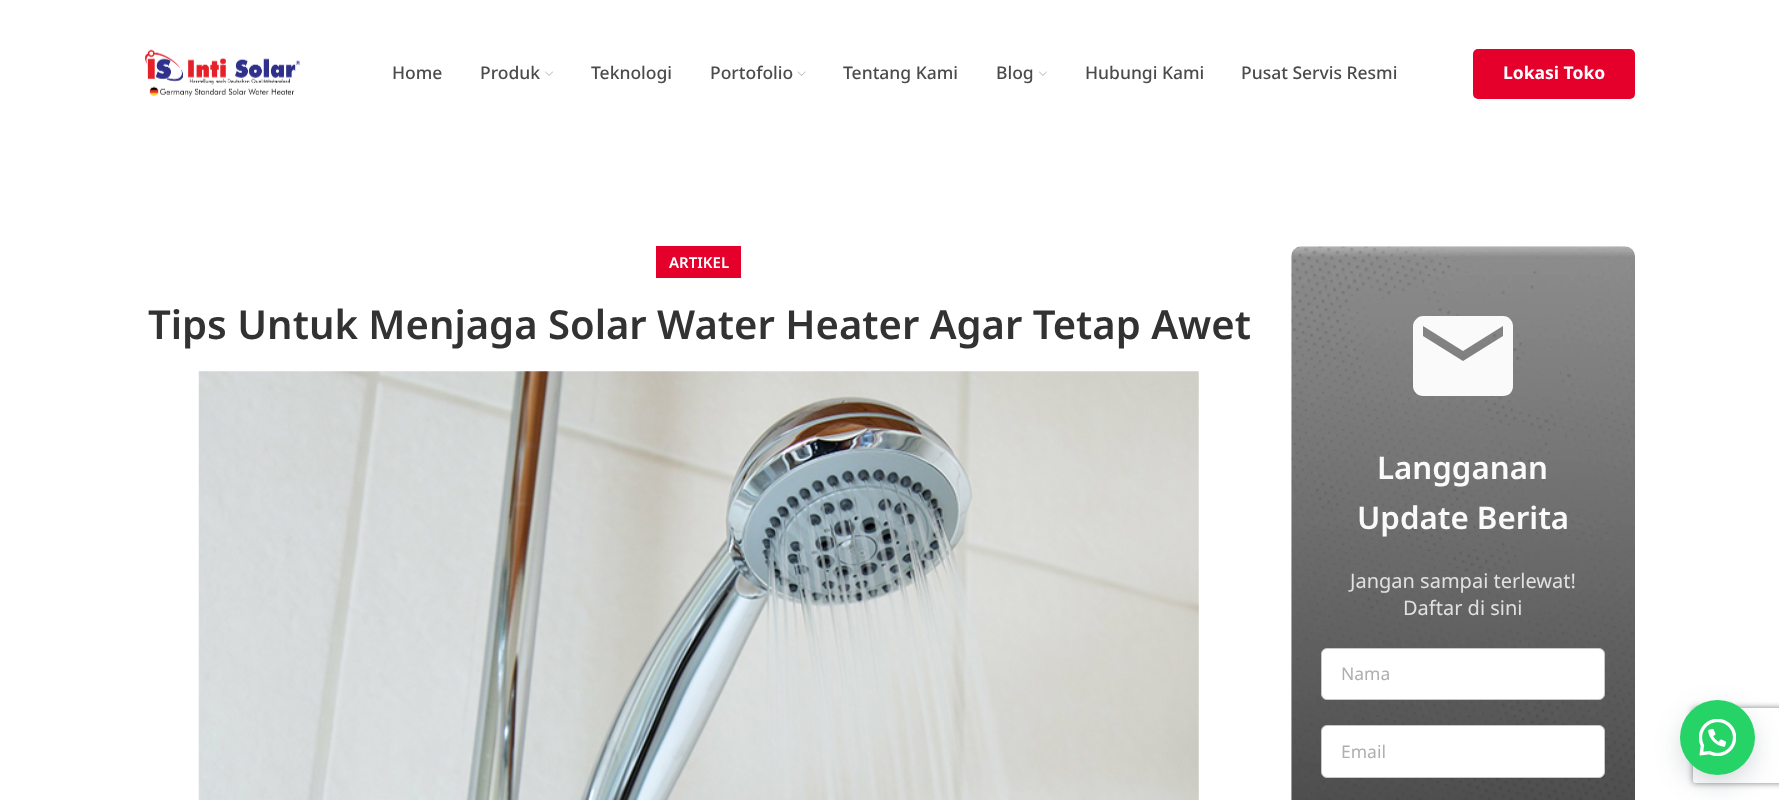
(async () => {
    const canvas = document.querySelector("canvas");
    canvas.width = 1779;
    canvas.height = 800;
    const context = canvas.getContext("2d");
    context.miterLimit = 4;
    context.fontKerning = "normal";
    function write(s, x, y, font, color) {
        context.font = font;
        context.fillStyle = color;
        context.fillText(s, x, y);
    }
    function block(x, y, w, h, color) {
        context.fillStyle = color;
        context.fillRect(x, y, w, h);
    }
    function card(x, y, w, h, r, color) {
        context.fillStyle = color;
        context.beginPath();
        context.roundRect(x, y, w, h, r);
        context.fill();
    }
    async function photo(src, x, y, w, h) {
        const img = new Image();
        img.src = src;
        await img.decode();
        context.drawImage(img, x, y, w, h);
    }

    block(0, 0, 1779, 800, "rgb(255, 255, 255)");
    await photo("media/1.png", 145, 49, 155, 48);
    write("Home", 392, 79, "500 17.5px Noto Sans", "rgb(75, 75, 75)");
    write("Produk", 480, 79, "500 17.5px Noto Sans", "rgb(75, 75, 75)");
    await photo("media/2.png", 545, 71, 8, 5);
    write("Teknologi", 591, 79, "500 17.5px Noto Sans", "rgb(75, 75, 75)");
    write("Portofolio", 710, 79, "500 17.5px Noto Sans", "rgb(75, 75, 75)");
    await photo("media/3.png", 797, 71, 9, 5);
    write("Tentang Kami", 843, 79, "500 17.5px Noto Sans", "rgb(75, 75, 75)");
    write("Blog", 996, 79, "500 17.5px Noto Sans", "rgb(75, 75, 75)");
    await photo("media/4.png", 1039, 71, 8, 5);
    write("Hubungi Kami", 1085, 79, "500 17.5px Noto Sans", "rgb(75, 75, 75)");
    write("Pusat Servis Resmi", 1241, 79, "500 17.5px Noto Sans", "rgb(75, 75, 75)");
    card(1473, 49, 162, 50, 5, "rgb(228, 0, 43)");
    write("Lokasi Toko", 1503, 79, "bold 17.5px Noto Sans", "rgb(255, 255, 255)");
    block(656, 246, 85, 32, "rgb(228, 0, 43)");
    write("ARTIKEL", 669, 268, "600 15px Noto Sans", "rgb(255, 255, 255)");
    write("Tips Untuk Menjaga Solar Water Heater Agar Tetap Awet", 148, 339, "600 40px Noto Sans", "rgb(50, 50, 50)");
    await photo("media/5.png", 198, 371, 1001, 429);
    await photo("media/6.png", 1291, 246, 344, 554);
    context.fillStyle = "rgb(249, 250, 249)";
    context.beginPath();
    context.moveTo(1503, 316);
    context.lineTo(1423, 316);
    context.bezierCurveTo(1418, 316, 1413, 321, 1413, 326);
    context.lineTo(1413, 386);
    context.bezierCurveTo(1413, 392, 1418, 396, 1423, 396);
    context.lineTo(1503, 396);
    context.bezierCurveTo(1509, 396, 1513, 392, 1513, 386);
    context.lineTo(1513, 326);
    context.bezierCurveTo(1513, 321, 1509, 316, 1503, 316);
    context.closePath();
    context.moveTo(1503, 336);
    context.lineTo(1463, 361);
    context.lineTo(1423, 336);
    context.lineTo(1423, 326);
    context.lineTo(1463, 351);
    context.lineTo(1503, 326);
    context.closePath();
    context.fill();
    write("Langganan", 1377, 479, "600 31.25px Noto Sans", "rgb(249, 250, 249)");
    write("Update Berita", 1357, 529, "600 31.25px Noto Sans", "rgb(249, 250, 249)");
    write("Jangan sampai terlewat!", 1350, 588, "20px Noto Sans", "rgb(224, 225, 224)");
    write("Daftar di sini", 1403, 615, "20px Noto Sans", "rgb(224, 225, 224)");
    context.fillStyle = "rgb(255, 255, 255)";
    context.beginPath();
    context.roundRect(1321.5, 648.5, 283, 51, 5.5);
    context.fill();
    context.strokeStyle = "rgb(199, 200, 199)";
    context.stroke();
    write("Nama", 1341, 680, "17.5px Noto Sans", "rgb(174, 175, 174)");
    context.fillStyle = "rgb(255, 255, 255)";
    context.beginPath();
    context.roundRect(1321.5, 725.5, 283, 52, 5.5);
    context.fill();
    context.stroke();
    write("Email", 1341, 758, "17.5px Noto Sans", "rgb(174, 175, 174)");
    context.fillStyle = "rgba(45, 62, 79, 0.3)";
    context.filter = "blur(15.5px)";
    context.beginPath();
    context.roundRect(1686, 716, 63, 63, 31.5);
    context.fill();
    context.filter = "none";
    context.save();
    context.beginPath();
    context.moveTo(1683, 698);
    context.lineTo(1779, 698);
    context.lineTo(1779, 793);
    context.lineTo(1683, 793);
    context.closePath();
    context.moveTo(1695.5, 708);
    context.lineTo(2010.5, 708);
    context.bezierCurveTo(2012, 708, 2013, 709, 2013, 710.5);
    context.lineTo(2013, 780.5);
    context.bezierCurveTo(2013, 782, 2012, 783, 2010.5, 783);
    context.lineTo(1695.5, 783);
    context.bezierCurveTo(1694, 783, 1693, 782, 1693, 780.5);
    context.lineTo(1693, 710.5);
    context.bezierCurveTo(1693, 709, 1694, 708, 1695.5, 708);
    context.closePath();
    context.clip("evenodd");
    context.fillStyle = "rgb(128, 128, 128)";
    context.filter = "blur(3px)";
    context.beginPath();
    context.roundRect(1693, 708, 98, 75, 2.5);
    context.fill();
    context.filter = "none";
    context.restore();
    context.fillStyle = "rgb(37, 211, 102)";
    context.beginPath();
    context.arc(1717.5, 737.5, 37.5, 0, Math.PI * 2);
    context.fill();
    await photo("media/7.png", 1699, 719, 37, 37);
})();
